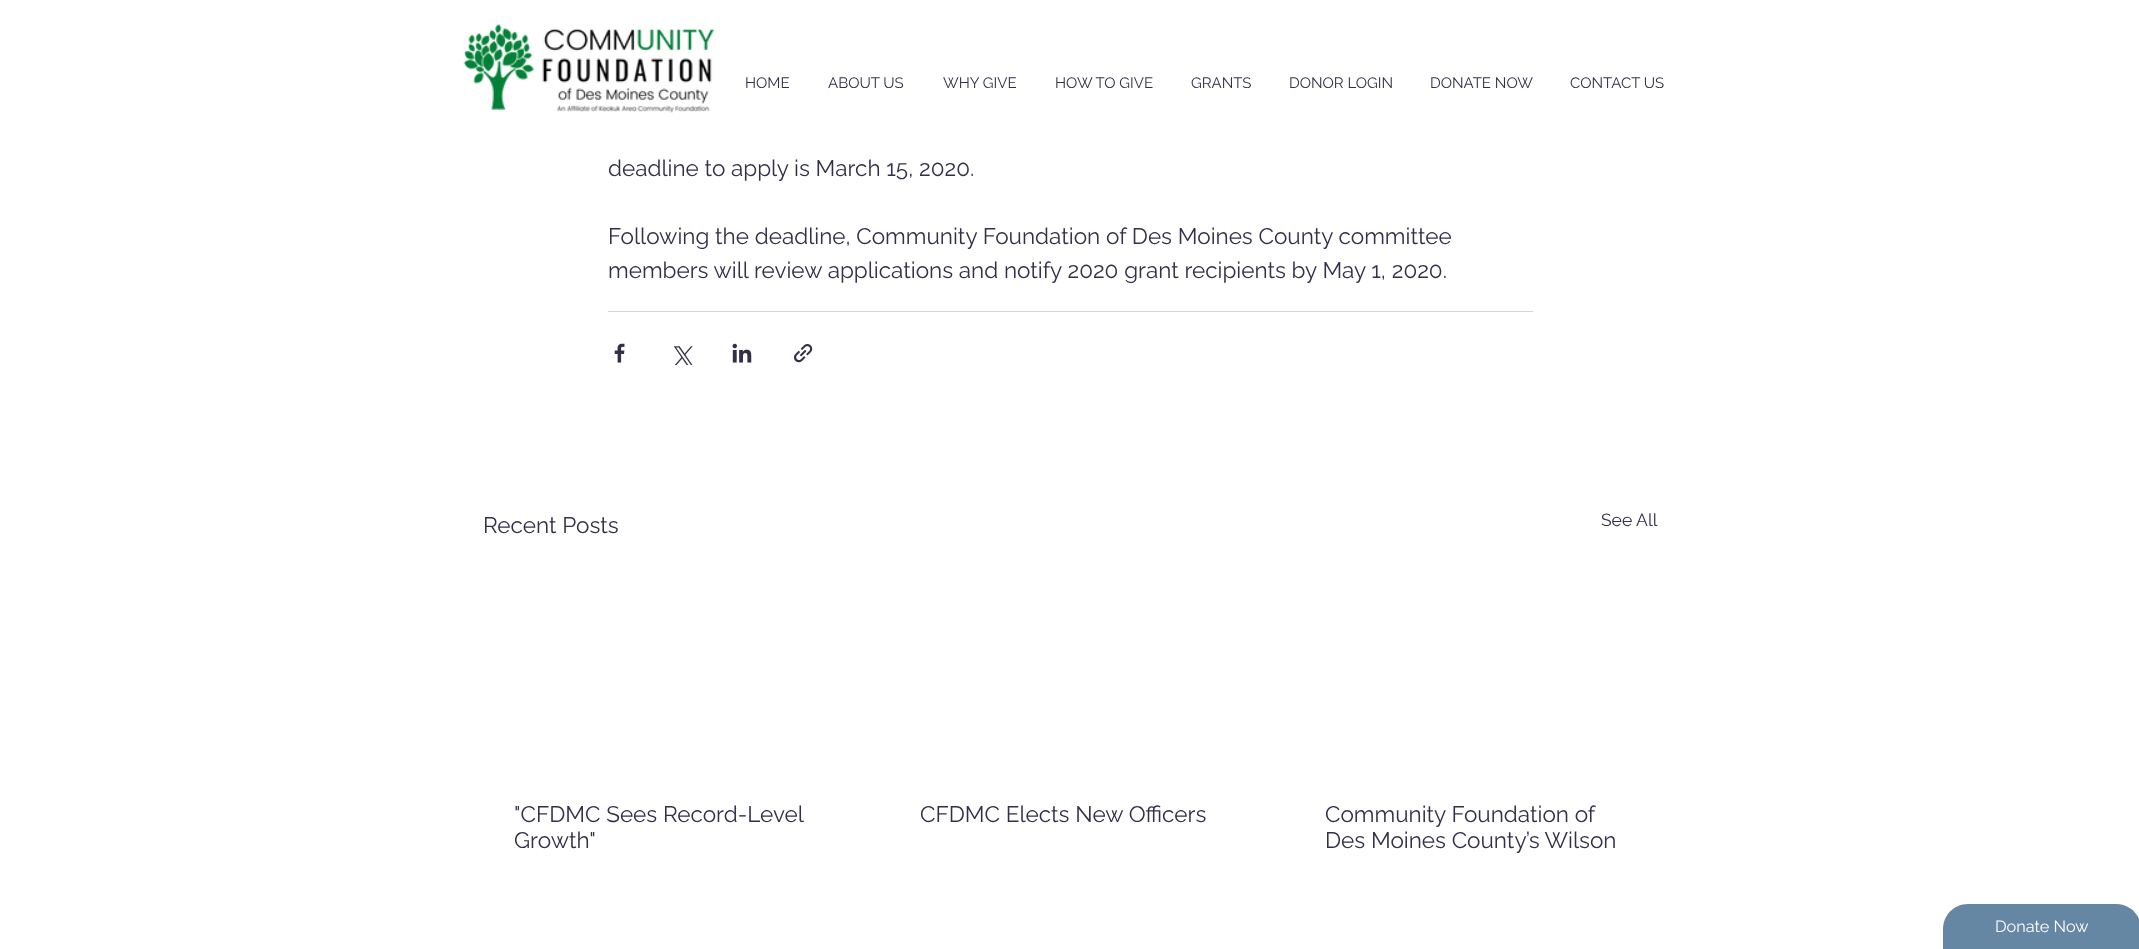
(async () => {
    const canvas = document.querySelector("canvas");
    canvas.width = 2139;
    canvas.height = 949;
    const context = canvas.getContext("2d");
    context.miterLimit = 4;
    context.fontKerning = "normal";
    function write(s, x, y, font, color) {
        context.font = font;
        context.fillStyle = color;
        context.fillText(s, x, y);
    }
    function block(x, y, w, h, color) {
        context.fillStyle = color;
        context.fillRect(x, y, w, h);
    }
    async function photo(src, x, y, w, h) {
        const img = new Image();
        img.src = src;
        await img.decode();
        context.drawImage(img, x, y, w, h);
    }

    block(0, 0, 2139, 949, "rgb(255, 255, 255)");
    await photo("media/1.png", 463, 24, 251, 89);
    write("HOME", 745, 88, "15px Raleway", "rgb(51, 46, 73)");
    write("ABOUT US", 828, 88, "15px Raleway", "rgb(51, 46, 73)");
    write("WHY GIVE", 943, 88, "15px Raleway", "rgb(51, 46, 73)");
    write("HOW TO GIVE", 1055, 88, "15px Raleway", "rgb(51, 46, 73)");
    write("GRANTS", 1191, 88, "15px Raleway", "rgb(51, 46, 73)");
    write("DONOR LOGIN", 1289, 88, "15px Raleway", "rgb(51, 46, 73)");
    write("DONATE NOW", 1430, 88, "15px Raleway", "rgb(51, 46, 73)");
    write("CONTACT US", 1570, 88, "15px Raleway", "rgb(51, 46, 73)");
    write("deadline to apply is March 15, 2020.", 608, 176, "22.5px Raleway", "rgb(51, 46, 73)");
    write("Following the deadline, Community Foundation of Des Moines County committee", 608, 244, "22.5px Raleway", "rgb(51, 46, 73)");
    write("members will review applications and notify 2020 grant recipients by May 1, 2020.", 608, 278, "22.5px Raleway", "rgb(51, 46, 73)");
    block(608, 311, 925, 1, "rgb(214, 213, 219)");
    await photo("media/2.png", 614, 343, 11, 20);
    await photo("media/3.png", 673, 346, 20, 19);
    await photo("media/4.png", 732, 343, 20, 20);
    await photo("media/5.png", 794, 344, 19, 19);
    write("Recent Posts", 483, 533, "22.5px Raleway", "rgb(51, 46, 73)");
    write("See All", 1601, 526, "17.5px Raleway", "rgb(51, 46, 73)");
    write("\"CFDMC Sees Record-Level", 514, 822, "22.5px Raleway", "rgb(51, 46, 73)");
    write("Growth\"", 514, 848, "22.5px Raleway", "rgb(51, 46, 73)");
    write("CFDMC Elects New Officers", 920, 822, "22.5px Raleway", "rgb(51, 46, 73)");
    write("Community Foundation of", 1325, 822, "22.5px Raleway", "rgb(51, 46, 73)");
    write("Des Moines County’s Wilson", 1325, 848, "22.5px Raleway", "rgb(51, 46, 73)");
    context.fillStyle = "rgb(101, 135, 164)";
    context.beginPath();
    context.moveTo(1968, 904);
    context.lineTo(2116, 904);
    context.bezierCurveTo(2130, 904, 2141, 915, 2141, 929);
    context.lineTo(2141, 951);
    context.lineTo(1943, 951);
    context.lineTo(1943, 929);
    context.bezierCurveTo(1943, 915, 1954, 904, 1968, 904);
    context.closePath();
    context.fill();
    write("Donate Now", 1995, 932, "16.25px Raleway", "rgb(255, 255, 255)");
})();
